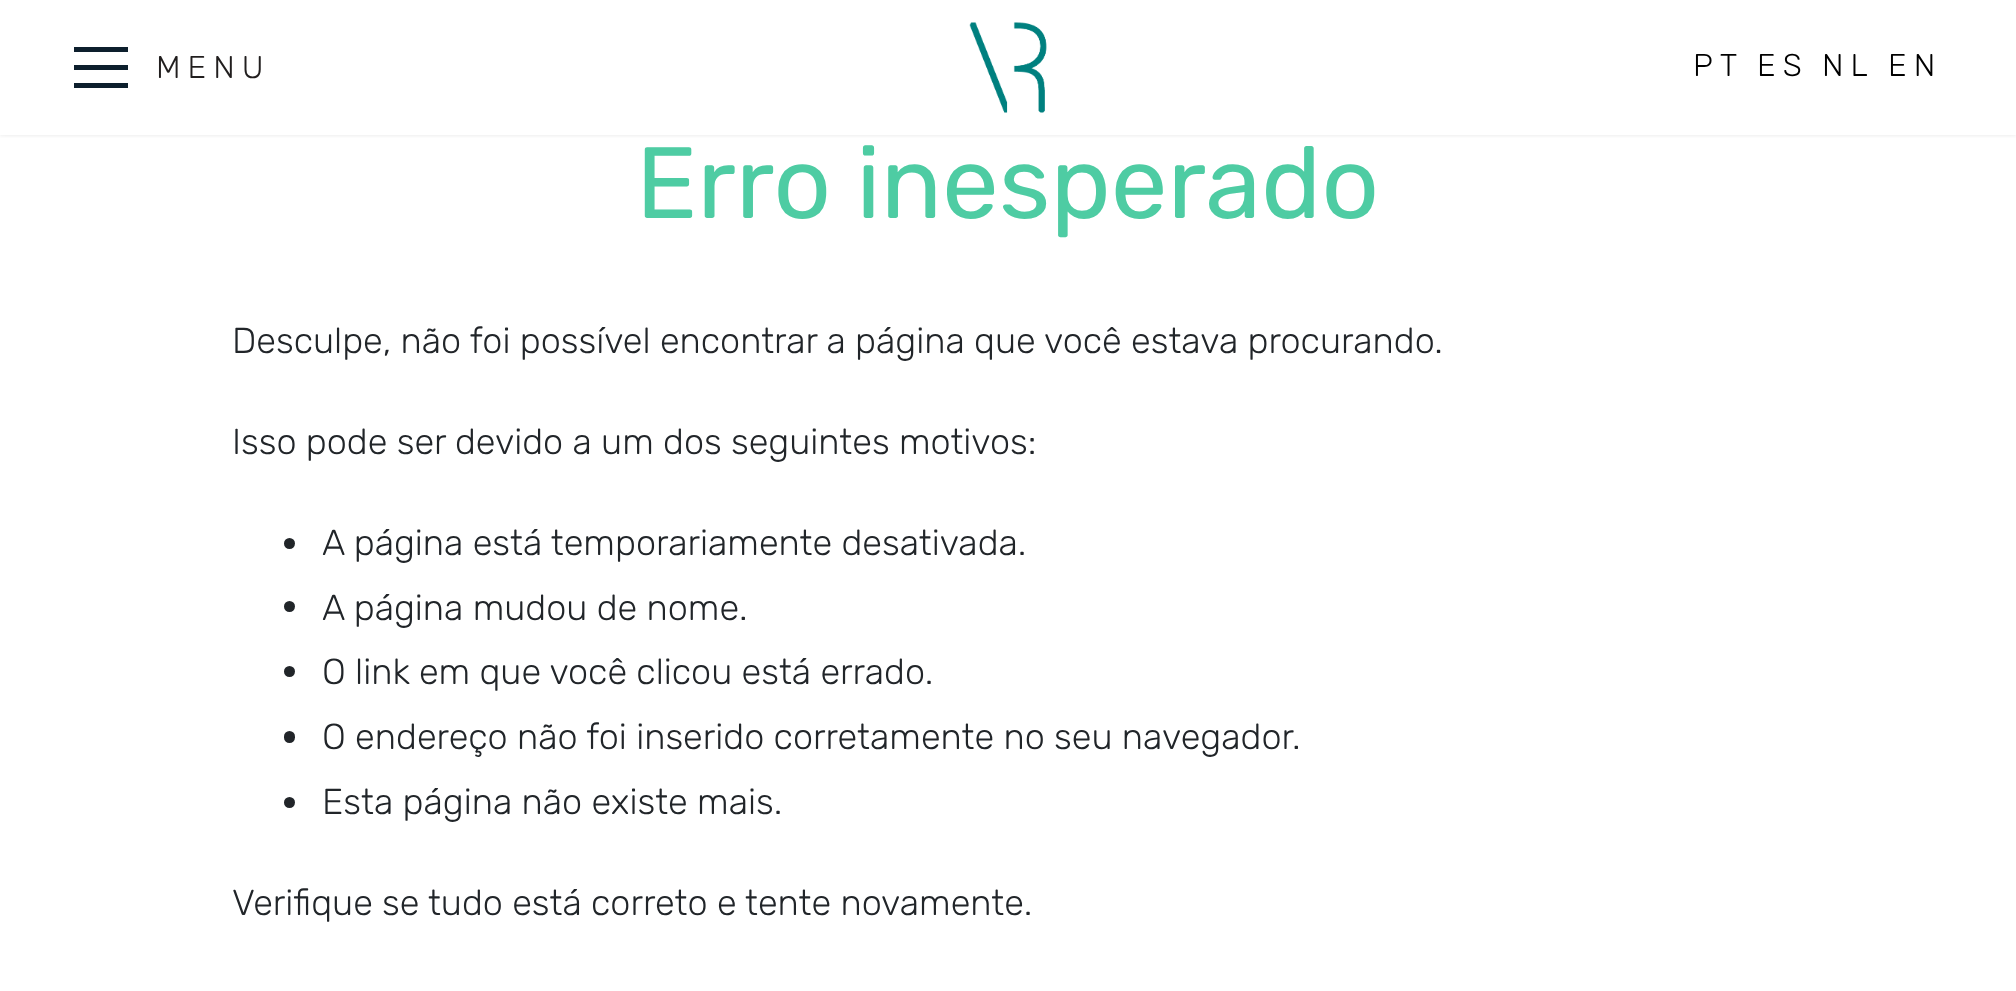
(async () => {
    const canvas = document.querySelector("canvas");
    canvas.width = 2016;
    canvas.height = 991;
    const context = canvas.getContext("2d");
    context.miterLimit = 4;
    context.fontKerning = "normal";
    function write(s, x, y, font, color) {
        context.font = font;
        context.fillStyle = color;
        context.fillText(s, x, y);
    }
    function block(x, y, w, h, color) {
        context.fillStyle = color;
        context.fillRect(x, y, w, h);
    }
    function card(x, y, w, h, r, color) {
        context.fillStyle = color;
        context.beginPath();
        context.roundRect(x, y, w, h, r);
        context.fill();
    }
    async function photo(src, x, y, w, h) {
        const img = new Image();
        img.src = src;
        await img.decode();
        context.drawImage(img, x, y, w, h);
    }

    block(0, 0, 2016, 991, "rgb(255, 255, 255)");
    context.save();
    context.beginPath();
    context.rect(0, 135, 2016, 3);
    context.clip();
    context.fillStyle = "rgba(204, 204, 204, 0.5)";
    context.filter = "blur(2px)";
    context.beginPath();
    context.rect(0, 0, 2016, 135);
    context.fill();
    context.filter = "none";
    context.restore();
    block(74, 65, 54, 5, "rgb(13, 31, 45)");
    block(74, 47, 54, 5, "rgb(13, 31, 45)");
    block(74, 83, 54, 5, "rgb(13, 31, 45)");
    context.letterSpacing = "7px";
    write("MENU", 156, 78, "300 31.5px Rubik", "rgb(33, 30, 30)");
    await photo("media/1.png", 969, 22, 78, 91);
    write("PT", 1693, 76, "300 31.5px Rubik", "rgb(0, 0, 0)");
    write("ES", 1757, 76, "300 31.5px Rubik", "rgb(0, 0, 0)");
    write("NL", 1822, 76, "300 31.5px Rubik", "rgb(0, 0, 0)");
    write("EN", 1888, 76, "300 31.5px Rubik", "rgb(0, 0, 0)");
    context.letterSpacing = "0px";
    write("Erro inesperado", 636, 218, "101.25px Rubik", "rgb(78, 204, 163)");
    write("Desculpe, não foi possível encontrar a página que você estava procurando.", 232, 353, "300 36px Rubik", "rgb(33, 37, 41)");
    write("Isso pode ser devido a um dos seguintes motivos:", 232, 454, "300 36px Rubik", "rgb(33, 37, 41)");
    context.beginPath();
    context.arc(289.5, 543.5, 5.5, 0, Math.PI * 2);
    context.fill();
    write("A página está temporariamente desativada.", 322, 555, "300 36px Rubik", "rgb(33, 37, 41)");
    context.beginPath();
    context.arc(289.5, 606.5, 5.5, 0, Math.PI * 2);
    context.fill();
    write("A página mudou de nome.", 322, 620, "300 36px Rubik", "rgb(33, 37, 41)");
    context.beginPath();
    context.arc(289.5, 671.5, 5.5, 0, Math.PI * 2);
    context.fill();
    write("O link em que você clicou está errado.", 322, 684, "300 36px Rubik", "rgb(33, 37, 41)");
    card(284, 731, 11, 12, 5.5, "rgb(33, 37, 41)");
    write("O endereço não foi inserido corretamente no seu navegador.", 322, 749, "300 36px Rubik", "rgb(33, 37, 41)");
    context.beginPath();
    context.arc(289.5, 802.5, 5.5, 0, Math.PI * 2);
    context.fill();
    write("Esta página não existe mais.", 322, 814, "300 36px Rubik", "rgb(33, 37, 41)");
    write("Verifique se tudo está correto e tente novamente.", 232, 915, "300 36px Rubik", "rgb(33, 37, 41)");
})();
